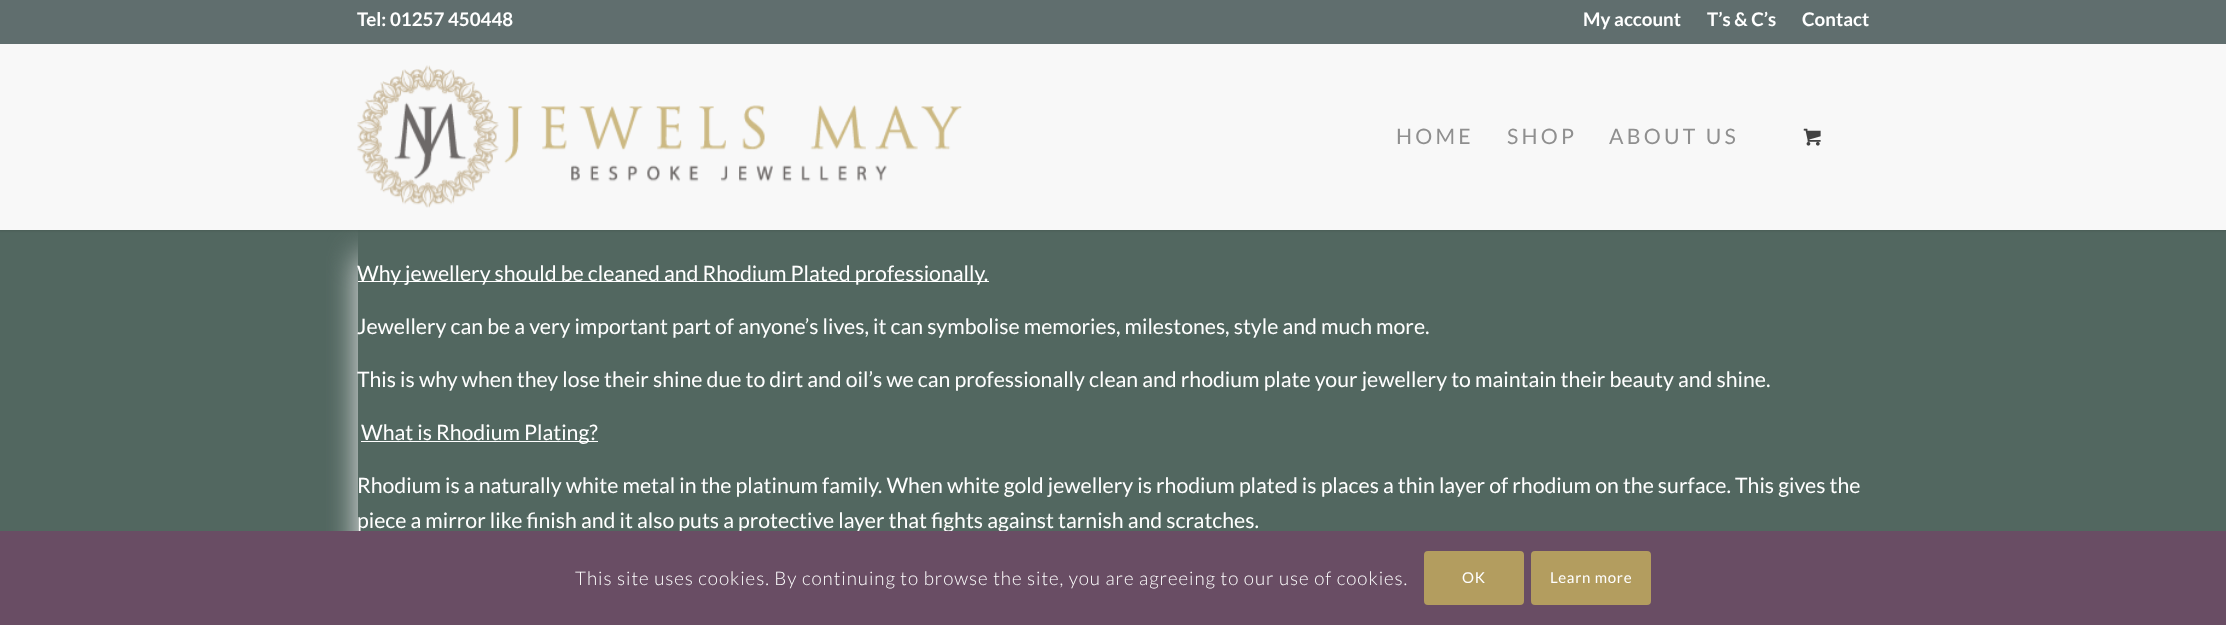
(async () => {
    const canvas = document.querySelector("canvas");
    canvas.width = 2226;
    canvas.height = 625;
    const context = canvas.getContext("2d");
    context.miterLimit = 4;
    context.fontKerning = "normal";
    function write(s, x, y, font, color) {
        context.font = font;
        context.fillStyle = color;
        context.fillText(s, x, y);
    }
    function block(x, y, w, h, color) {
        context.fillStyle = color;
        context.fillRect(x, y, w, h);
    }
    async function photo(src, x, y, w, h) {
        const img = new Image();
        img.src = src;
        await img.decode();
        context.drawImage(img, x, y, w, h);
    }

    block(0, 0, 2226, 625, "rgb(82, 103, 96)");
    context.fillStyle = "rgba(0, 0, 0, 0.1)";
    context.filter = "blur(1px)";
    context.beginPath();
    context.rect(-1, -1, 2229, 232);
    context.fill();
    context.filter = "none";
    block(0, 0, 2226, 44, "rgb(96, 110, 110)");
    write("Tel: 01257 450448", 357, 26, "bold 18.75px Lato", "rgb(255, 255, 255)");
    write("My account", 1583, 26, "bold 18.75px Lato", "rgb(255, 255, 255)");
    write("T’s & C’s", 1707, 26, "bold 18.75px Lato", "rgb(255, 255, 255)");
    write("Contact", 1802, 26, "bold 18.75px Lato", "rgb(255, 255, 255)");
    context.save();
    context.beginPath();
    context.rect(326, 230, 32, 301);
    context.clip();
    context.fillStyle = "rgb(233, 233, 235)";
    context.filter = "blur(15.5px)";
    context.beginPath();
    context.rect(358, 256, 1450, 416);
    context.fill();
    context.filter = "none";
    context.restore();
    block(0, 44, 2226, 186, "rgb(248, 248, 248)");
    await photo("media/1.png", 357, 65, 605, 143);
    context.letterSpacing = "3.25px";
    write("HOME", 1396, 144, "21.25px Lato", "rgb(143, 143, 143)");
    write("SHOP", 1507, 144, "21.25px Lato", "rgb(143, 143, 143)");
    write("ABOUT US", 1609, 144, "21.25px Lato", "rgb(143, 143, 143)");
    await photo("media/2.png", 1803, 128, 18, 18);
    block(358, 281, 631, 1, "rgb(255, 255, 255)");
    context.letterSpacing = "0px";
    write("Why jewellery should be cleaned and Rhodium Plated professionally.", 357, 281, "21.25px Lato", "rgb(255, 255, 255)");
    write("Jewellery can be a very important part of anyone’s lives, it can symbolise memories, milestones, style and much more.", 357, 334, "21.25px Lato", "rgb(255, 255, 255)");
    write("This is why when they lose their shine due to dirt and oil’s we can professionally clean and rhodium plate your jewellery to maintain their beauty and shine.", 357, 387, "21.25px Lato", "rgb(255, 255, 255)");
    block(361, 441, 237, 1, "rgb(255, 255, 255)");
    write("What is Rhodium Plating?", 361, 440, "21.25px Lato", "rgb(255, 255, 255)");
    write("Rhodium is a naturally white metal in the platinum family. When white gold jewellery is rhodium plated is places a thin layer of rhodium on the surface. This gives the", 357, 493, "21.25px Lato", "rgb(255, 255, 255)");
    write("piece a mirror like finish and it also puts a protective layer that fights against tarnish and scratches.", 357, 528, "21.25px Lato", "rgb(255, 255, 255)");
    block(0, 531, 2226, 94, "rgb(105, 77, 100)");
    context.letterSpacing = "0.95px";
    write("This site uses cookies. By continuing to browse the site, you are agreeing to our use of cookies.", 575, 585, "300 18.75px Lato", "rgb(255, 255, 255)");
    context.fillStyle = "rgb(179, 157, 95)";
    context.beginPath();
    context.roundRect(1425.5, 552.5, 97, 51, 2.5);
    context.fill();
    context.strokeStyle = "rgb(179, 157, 95)";
    context.lineWidth = 3;
    context.stroke();
    context.letterSpacing = "0.75px";
    write("OK", 1462, 583, "15px Lato", "rgb(255, 255, 255)");
    context.fillStyle = "rgb(179, 157, 95)";
    context.beginPath();
    context.roundRect(1532.5, 552.5, 117, 51, 2.5);
    context.fill();
    context.stroke();
    write("Learn more", 1550, 583, "15px Lato", "rgb(255, 255, 255)");
})();
